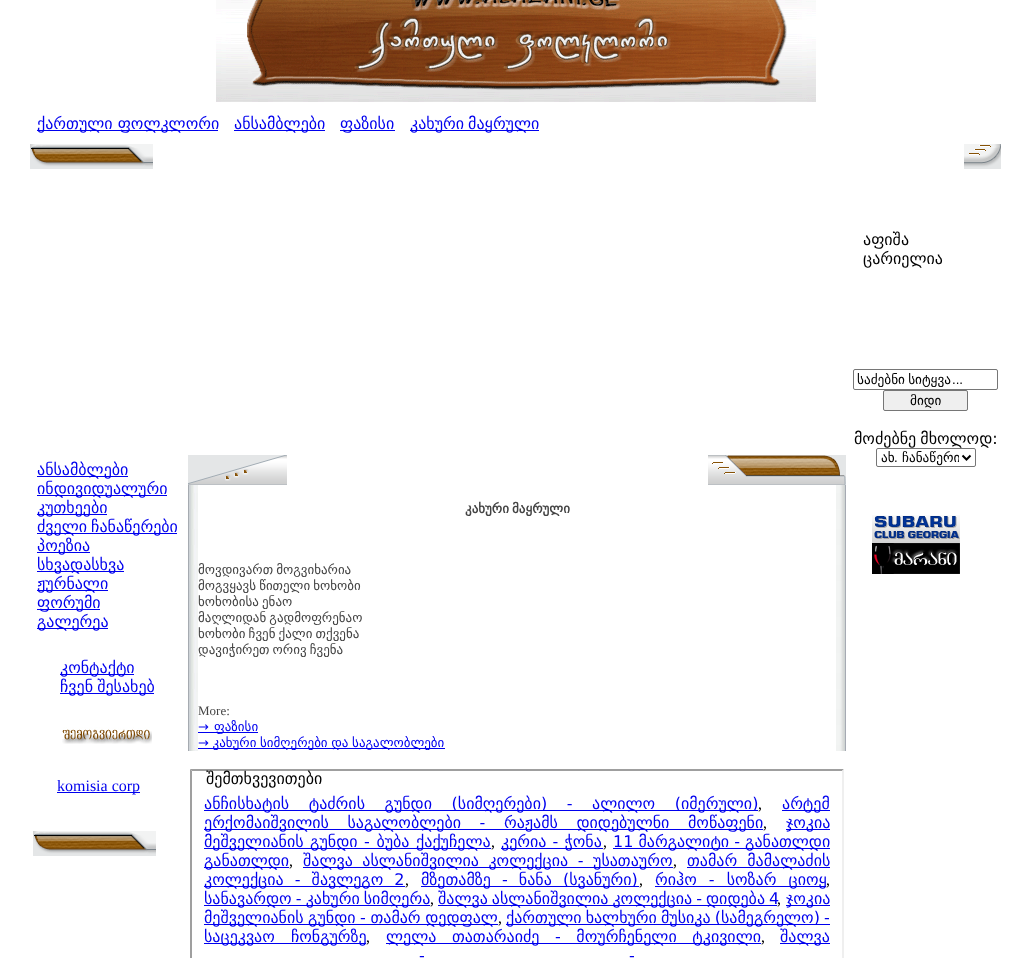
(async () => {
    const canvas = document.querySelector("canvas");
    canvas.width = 1031;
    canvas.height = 958;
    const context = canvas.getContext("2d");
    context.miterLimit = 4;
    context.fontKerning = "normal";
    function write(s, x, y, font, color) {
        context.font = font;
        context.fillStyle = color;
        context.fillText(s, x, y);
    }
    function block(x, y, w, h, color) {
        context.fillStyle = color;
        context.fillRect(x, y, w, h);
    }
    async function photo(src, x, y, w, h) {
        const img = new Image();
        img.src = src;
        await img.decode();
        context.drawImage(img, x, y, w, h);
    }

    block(0, 0, 1031, 958, "rgb(255, 255, 255)");
    await photo("media/1.png", 216, 0, 600, 102);
    block(37, 130, 181, 1, "rgb(0, 0, 238)");
    write("ქართული ფოლკლორი", 37, 129, "16px DejaVu Sans", "rgb(0, 0, 238)");
    block(234, 130, 91, 1, "rgb(0, 0, 238)");
    write("ანსამბლები", 234, 129, "16px DejaVu Sans", "rgb(0, 0, 238)");
    block(340, 130, 55, 1, "rgb(0, 0, 238)");
    write("ფაზისი", 340, 129, "16px DejaVu Sans", "rgb(0, 0, 238)");
    block(410, 130, 129, 1, "rgb(0, 0, 238)");
    context.wordSpacing = "-1px";
    write("კახური მაყრული", 410, 129, "16px DejaVu Sans", "rgb(0, 0, 238)");
    await photo("media/2.png", 30, 144, 123, 25);
    await photo("media/3.png", 964, 144, 37, 25);
    context.wordSpacing = "0px";
    write("აფიშა", 863, 245, "16px DejaVu Sans", "rgb(0, 0, 0)");
    write("ცარიელია", 863, 264, "16px DejaVu Sans", "rgb(0, 0, 0)");
    context.beginPath();
    context.roundRect(853.5, 369.5, 144, 20, 1.5);
    context.strokeStyle = "rgb(118, 118, 118)";
    context.stroke();
    context.save();
    context.beginPath();
    context.rect(857, 372, 137, 15);
    context.clip();
    context.wordSpacing = "-1px";
    write("საძებნი სიტყვა", 857, 384, "13.25px DejaVu Sans", "rgb(0, 0, 0)");
    context.restore();
    write("...", 952, 384, "13.25px Liberation Sans", "rgb(0, 0, 0)");
    context.fillStyle = "rgb(239, 239, 239)";
    context.beginPath();
    context.roundRect(883.5, 390.5, 84, 20, 1.5);
    context.fill();
    context.stroke();
    write("მიდი", 910, 405, "13.25px DejaVu Sans", "rgb(0, 0, 0)");
    context.wordSpacing = "-1px";
    write("მოძებნე მხოლოდ:", 854, 444, "16px DejaVu Sans", "rgb(0, 0, 0)");
    context.beginPath();
    context.roundRect(876.5, 448.5, 99, 18, 1.5);
    context.stroke();
    context.beginPath();
    context.moveTo(962.5, 455.5);
    context.lineTo(966.5, 459.5);
    context.lineTo(970.5, 455.5);
    context.strokeStyle = "rgb(0, 0, 0)";
    context.lineWidth = 2;
    context.stroke();
    context.wordSpacing = "0px";
    write("ახ", 881, 462, "13.25px DejaVu Sans", "rgb(0, 0, 0)");
    write(".", 894, 462, "13.25px Liberation Sans", "rgb(0, 0, 0)");
    context.save();
    context.beginPath();
    context.rect(881, 449, 78, 17);
    context.clip();
    write("ჩანაწერი", 902, 462, "13.25px DejaVu Sans", "rgb(0, 0, 0)");
    context.restore();
    await photo("media/4.png", 872, 515, 88, 28);
    await photo("media/5.png", 872, 543, 88, 31);
    block(37, 476, 91, 1, "rgb(0, 0, 238)");
    write("ანსამბლები", 37, 475, "16px DejaVu Sans", "rgb(0, 0, 238)");
    block(37, 495, 130, 1, "rgb(0, 0, 238)");
    write("ინდივიდუალური", 37, 494, "16px DejaVu Sans", "rgb(0, 0, 238)");
    block(37, 514, 70, 1, "rgb(0, 0, 238)");
    write("კუთხეები", 37, 513, "16px DejaVu Sans", "rgb(0, 0, 238)");
    block(37, 533, 140, 1, "rgb(0, 0, 238)");
    context.wordSpacing = "-1px";
    write("ძველი ჩანაწერები", 37, 532, "16px DejaVu Sans", "rgb(0, 0, 238)");
    block(37, 552, 53, 1, "rgb(0, 0, 238)");
    context.wordSpacing = "0px";
    write("პოეზია", 37, 551, "16px DejaVu Sans", "rgb(0, 0, 238)");
    block(37, 571, 87, 1, "rgb(0, 0, 238)");
    write("სხვადასხვა", 37, 570, "16px DejaVu Sans", "rgb(0, 0, 238)");
    block(37, 590, 71, 1, "rgb(0, 0, 238)");
    write("ჟურნალი", 37, 589, "16px DejaVu Sans", "rgb(0, 0, 238)");
    block(37, 609, 63, 1, "rgb(0, 0, 238)");
    write("ფორუმი", 37, 608, "16px DejaVu Sans", "rgb(0, 0, 238)");
    block(37, 628, 71, 1, "rgb(0, 0, 238)");
    write("გალერეა", 37, 627, "16px DejaVu Sans", "rgb(0, 0, 238)");
    block(60, 674, 74, 1, "rgb(0, 0, 238)");
    write("კონტაქტი", 60, 673, "16px DejaVu Sans", "rgb(0, 0, 238)");
    block(60, 693, 94, 1, "rgb(0, 0, 238)");
    context.wordSpacing = "-1px";
    write("ჩვენ შესახებ", 60, 692, "16px DejaVu Sans", "rgb(0, 0, 238)");
    await photo("media/6.png", 62, 727, 90, 17);
    block(57, 792, 83, 1, "rgb(0, 0, 238)");
    context.wordSpacing = "0px";
    write("komisia corp", 57, 791, "16px Liberation Serif", "rgb(0, 0, 238)");
    await photo("media/2.png", 33, 831, 123, 25);
    await photo("media/7.png", 188, 455, 99, 30);
    await photo("media/8.png", 708, 455, 138, 30);
    await photo("media/9.png", 188, 485, 10, 266);
    context.wordSpacing = "-1px";
    write("კახური მაყრული", 465, 513, "bold 13px DejaVu Sans", "rgb(68, 68, 68)");
    write("მოვდივართ მოგვიხარია", 198, 574, "13px DejaVu Sans", "rgb(68, 68, 68)");
    write("მოგვყავს წითელი ხოხობი", 198, 590, "13px DejaVu Sans", "rgb(68, 68, 68)");
    write("ხოხობისა ენაო", 198, 606, "13px DejaVu Sans", "rgb(68, 68, 68)");
    write("მაღლიდან გადმოფრენაო", 198, 622, "13px DejaVu Sans", "rgb(68, 68, 68)");
    write("ხოხობი ჩვენ ქალი თქვენა", 198, 638, "13px DejaVu Sans", "rgb(68, 68, 68)");
    write("დავიჭირეთ ორივ ჩვენა", 198, 654, "13px DejaVu Sans", "rgb(68, 68, 68)");
    context.wordSpacing = "0px";
    write("More:", 198, 715, "13px Liberation Serif", "rgb(68, 68, 68)");
    block(198, 732, 60, 1, "rgb(0, 0, 238)");
    context.wordSpacing = "1px";
    write("→ ფაზისი", 198, 731, "13px DejaVu Sans", "rgb(0, 0, 238)");
    block(198, 748, 247, 1, "rgb(0, 0, 238)");
    context.wordSpacing = "-0.5px";
    write("→ კახური სიმღერები და საგალობლები", 198, 747, "13px DejaVu Sans", "rgb(0, 0, 238)");
    await photo("media/10.png", 836, 485, 10, 266);
    context.fillStyle = "rgb(159, 159, 159)";
    context.beginPath();
    context.moveTo(190, 769);
    context.lineTo(844, 769);
    context.lineTo(842, 771);
    context.lineTo(192, 771);
    context.closePath();
    context.fill();
    context.fillStyle = "rgb(239, 239, 239)";
    context.beginPath();
    context.moveTo(844, 769);
    context.lineTo(844, 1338);
    context.lineTo(842, 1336);
    context.lineTo(842, 771);
    context.closePath();
    context.fill();
    context.fillStyle = "rgb(159, 159, 159)";
    context.beginPath();
    context.moveTo(190, 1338);
    context.lineTo(190, 769);
    context.lineTo(192, 771);
    context.lineTo(192, 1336);
    context.closePath();
    context.fill();
    context.wordSpacing = "0px";
    write("შემთხვევითები", 206, 784, "16px DejaVu Sans", "rgb(0, 0, 0)");
    block(204, 810, 554, 1, "rgb(0, 0, 238)");
    context.wordSpacing = "14.5px";
    write("ანჩისხატის ტაძრის გუნდი (სიმღერები) - ალილო (იმერული)", 204, 809, "16px DejaVu Sans", "rgb(0, 0, 238)");
    context.wordSpacing = "0px";
    write(",", 758, 809, "16px Liberation Serif", "rgb(0, 0, 0)");
    block(782, 810, 48, 1, "rgb(0, 0, 238)");
    write("არტემ", 782, 809, "16px DejaVu Sans", "rgb(0, 0, 238)");
    block(204, 829, 559, 1, "rgb(0, 0, 238)");
    context.wordSpacing = "13.5px";
    write("ერქომაიშვილის საგალობლები - რაჟამს დიდებულნი მოწაფენი", 204, 828, "16px DejaVu Sans", "rgb(0, 0, 238)");
    context.wordSpacing = "0px";
    write(",", 763, 828, "16px Liberation Serif", "rgb(0, 0, 0)");
    block(786, 829, 44, 1, "rgb(0, 0, 238)");
    write("ჯოკია", 786, 828, "16px DejaVu Sans", "rgb(0, 0, 238)");
    block(204, 848, 287, 1, "rgb(0, 0, 238)");
    context.wordSpacing = "1.5px";
    write("მეშველიანის გუნდი - ბუბა ქაქუჩელა", 204, 847, "16px DejaVu Sans", "rgb(0, 0, 238)");
    context.wordSpacing = "0px";
    write(",", 491, 847, "16px Liberation Serif", "rgb(0, 0, 0)");
    block(501, 848, 102, 1, "rgb(0, 0, 238)");
    context.wordSpacing = "1px";
    write("კერია - ჭონა", 501, 847, "16px DejaVu Sans", "rgb(0, 0, 238)");
    context.wordSpacing = "0px";
    write(",", 603, 847, "16px Liberation Serif", "rgb(0, 0, 0)");
    block(613, 848, 217, 1, "rgb(0, 0, 238)");
    write("11 მარგალიტი - განათლდი", 613, 847, "16px DejaVu Sans", "rgb(0, 0, 238)");
    block(204, 867, 85, 1, "rgb(0, 0, 238)");
    write("განათლდი", 204, 866, "16px DejaVu Sans", "rgb(0, 0, 238)");
    write(",", 289, 866, "16px Liberation Serif", "rgb(0, 0, 0)");
    block(303, 867, 370, 1, "rgb(0, 0, 238)");
    context.wordSpacing = "4.5px";
    write("შალვა ასლანიშვილია კოლექცია - უსათაურო", 303, 866, "16px DejaVu Sans", "rgb(0, 0, 238)");
    context.wordSpacing = "0px";
    write(",", 673, 866, "16px Liberation Serif", "rgb(0, 0, 0)");
    block(687, 867, 143, 1, "rgb(0, 0, 238)");
    context.wordSpacing = "5px";
    write("თამარ მამალაძის", 687, 866, "16px DejaVu Sans", "rgb(0, 0, 238)");
    block(204, 886, 201, 1, "rgb(0, 0, 238)");
    context.wordSpacing = "6px";
    write("კოლექცია - შავლეგო 2", 204, 885, "16px DejaVu Sans", "rgb(0, 0, 238)");
    context.wordSpacing = "0px";
    write(",", 405, 885, "16px Liberation Serif", "rgb(0, 0, 0)");
    block(421, 886, 218, 1, "rgb(0, 0, 238)");
    context.wordSpacing = "6px";
    write("მზეთამზე - ნანა (სვანური)", 421, 885, "16px DejaVu Sans", "rgb(0, 0, 238)");
    context.wordSpacing = "0px";
    write(",", 639, 885, "16px Liberation Serif", "rgb(0, 0, 0)");
    block(655, 886, 171, 1, "rgb(0, 0, 238)");
    context.wordSpacing = "7px";
    write("რიჰო - სოზარ ციოყ", 655, 885, "16px DejaVu Sans", "rgb(0, 0, 238)");
    context.wordSpacing = "0px";
    write(",", 826, 885, "16px Liberation Serif", "rgb(0, 0, 0)");
    block(204, 905, 226, 1, "rgb(0, 0, 238)");
    context.wordSpacing = "-1px";
    write("სანავარდო - კახური სიმღერა", 204, 904, "16px DejaVu Sans", "rgb(0, 0, 238)");
    context.wordSpacing = "0px";
    write(",", 430, 904, "16px Liberation Serif", "rgb(0, 0, 0)");
    block(438, 905, 339, 1, "rgb(0, 0, 238)");
    context.wordSpacing = "-1px";
    write("შალვა ასლანიშვილია კოლექცია - დიდება 4", 438, 904, "16px DejaVu Sans", "rgb(0, 0, 238)");
    context.wordSpacing = "0px";
    write(",", 777, 904, "16px Liberation Serif", "rgb(0, 0, 0)");
    block(786, 905, 44, 1, "rgb(0, 0, 238)");
    write("ჯოკია", 786, 904, "16px DejaVu Sans", "rgb(0, 0, 238)");
    block(204, 924, 294, 1, "rgb(0, 0, 238)");
    context.wordSpacing = "-0.5px";
    write("მეშველიანის გუნდი - თამარ დედფალ", 204, 923, "16px DejaVu Sans", "rgb(0, 0, 238)");
    context.wordSpacing = "0px";
    write(",", 498, 923, "16px Liberation Serif", "rgb(0, 0, 0)");
    block(506, 924, 324, 1, "rgb(0, 0, 238)");
    context.wordSpacing = "-1px";
    write("ქართული ხალხური მუსიკა (სამეგრელო) -", 506, 923, "16px DejaVu Sans", "rgb(0, 0, 238)");
    block(204, 943, 162, 1, "rgb(0, 0, 238)");
    context.wordSpacing = "11px";
    write("საცეკვაო ჩონგურზე", 204, 942, "16px DejaVu Sans", "rgb(0, 0, 238)");
    context.wordSpacing = "0px";
    write(",", 366, 942, "16px Liberation Serif", "rgb(0, 0, 0)");
    block(386, 943, 375, 1, "rgb(0, 0, 238)");
    context.wordSpacing = "10.5px";
    write("ლელა თათარაიძე - მოურჩენელი ტკივილი", 386, 942, "16px DejaVu Sans", "rgb(0, 0, 238)");
    context.wordSpacing = "0px";
    write(",", 761, 942, "16px Liberation Serif", "rgb(0, 0, 0)");
    block(780, 943, 50, 1, "rgb(0, 0, 238)");
    write("შალვა", 780, 942, "16px DejaVu Sans", "rgb(0, 0, 238)");
    context.wordSpacing = "4px";
    write("-", 419, 961, "16px DejaVu Sans", "rgb(0, 0, 238)");
    write("-", 629, 961, "16px DejaVu Sans", "rgb(0, 0, 238)");
})();
